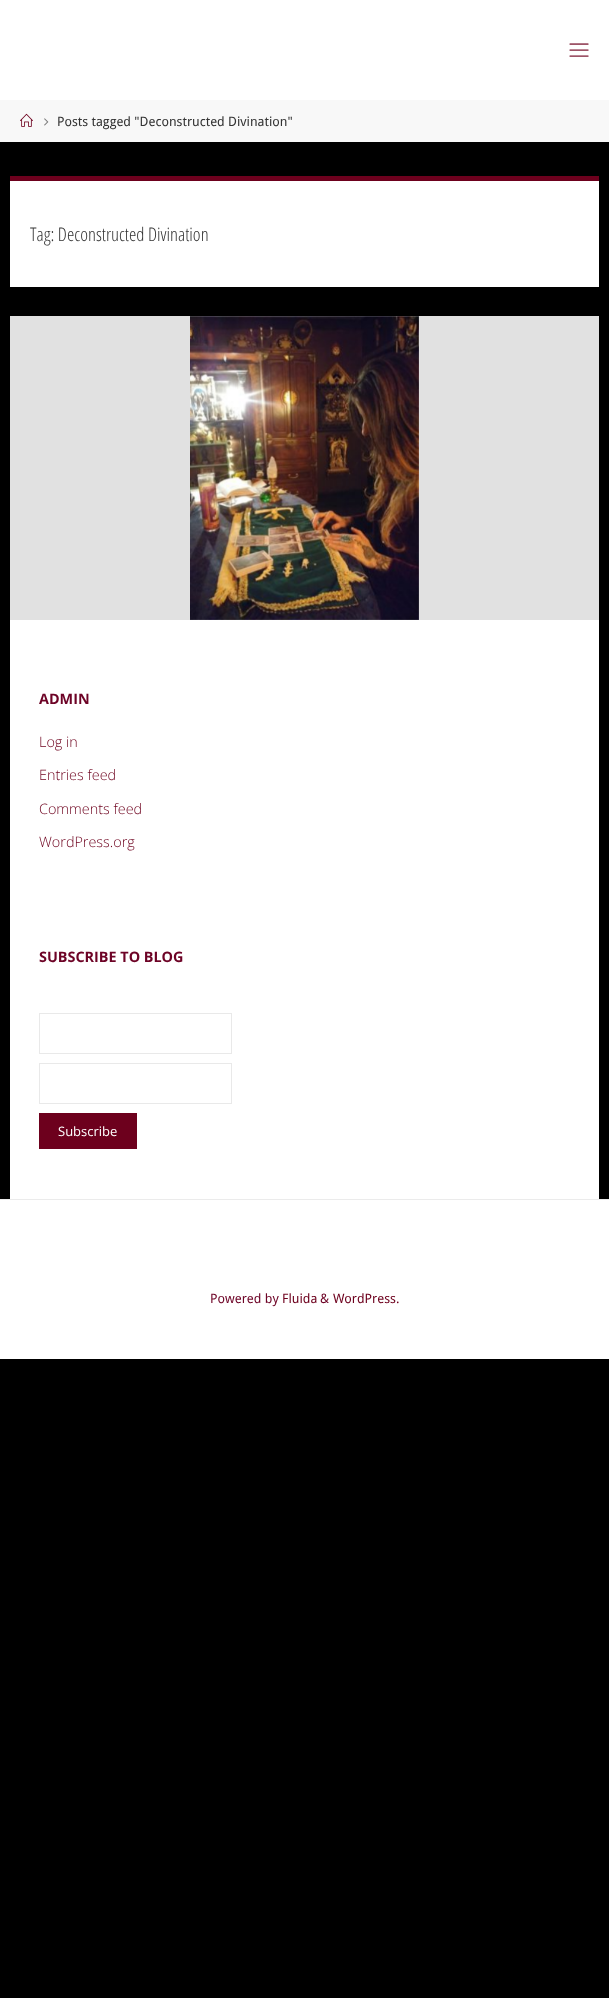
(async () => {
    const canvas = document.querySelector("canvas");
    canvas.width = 609;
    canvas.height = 1998;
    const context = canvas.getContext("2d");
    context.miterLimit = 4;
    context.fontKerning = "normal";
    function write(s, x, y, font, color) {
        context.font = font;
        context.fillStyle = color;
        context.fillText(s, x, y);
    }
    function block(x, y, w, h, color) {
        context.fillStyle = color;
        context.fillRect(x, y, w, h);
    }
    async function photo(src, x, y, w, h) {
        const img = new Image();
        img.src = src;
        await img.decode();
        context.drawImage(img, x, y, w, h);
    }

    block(0, 0, 609, 1998, "rgb(0, 0, 0)");
    block(0, 0, 609, 100, "rgb(255, 255, 255)");
    await photo("media/1.png", 569, 43, 20, 14);
    block(0, 100, 609, 42, "rgb(248, 248, 248)");
    await photo("media/2.png", 20, 113, 13, 14);
    await photo("media/3.png", 44, 118, 5, 8);
    write("Posts tagged \"Deconstructed Divination\"", 57, 126, "13px Droid Sans", "rgb(51, 51, 51)");
    block(10, 181, 589, 106, "rgb(255, 255, 255)");
    block(10, 176, 589, 5, "rgb(109, 0, 29)");
    write("Tag: Deconstructed Divination", 30, 241, "300 18.75px Open Sans Condensed", "rgb(51, 51, 51)");
    block(10, 316, 589, 304, "rgb(225, 225, 225)");
    await photo("media/4.png", 190, 316, 229, 304);
    block(10, 620, 589, 579, "rgb(255, 255, 255)");
    write("ADMIN", 39, 704, "bold 14.4px Open Sans", "rgb(109, 3, 38)");
    write("Log in", 39, 747, "300 14.4px Open Sans", "rgb(109, 0, 29)");
    write("Entries feed", 39, 780, "300 14.4px Open Sans", "rgb(109, 0, 29)");
    write("Comments feed", 39, 814, "300 14.4px Open Sans", "rgb(109, 0, 29)");
    write("WordPress.org", 39, 847, "300 14.4px Open Sans", "rgb(109, 0, 29)");
    write("SUBSCRIBE TO BLOG", 39, 962, "bold 14.4px Open Sans", "rgb(109, 3, 38)");
    context.strokeStyle = "rgb(233, 233, 233)";
    context.strokeRect(39.5, 1013.5, 192, 40);
    context.strokeRect(39.5, 1063.5, 192, 40);
    block(39, 1113, 98, 36, "rgb(109, 0, 29)");
    write("Subscribe", 58, 1136, "13px Open Sans", "rgb(255, 255, 255)");
    block(0, 1200, 609, 159, "rgb(255, 255, 255)");
    block(0, 1199, 609, 1, "rgb(235, 235, 235)");
    write("Powered by", 210, 1303, "13px Droid Sans", "rgb(109, 3, 38)");
    write("Fluida", 282, 1303, "13px Droid Sans", "rgb(109, 0, 29)");
    write("&", 320, 1303, "13px Droid Sans", "rgb(109, 3, 38)");
    write("WordPress.", 333, 1303, "13px Droid Sans", "rgb(109, 0, 29)");
})();
